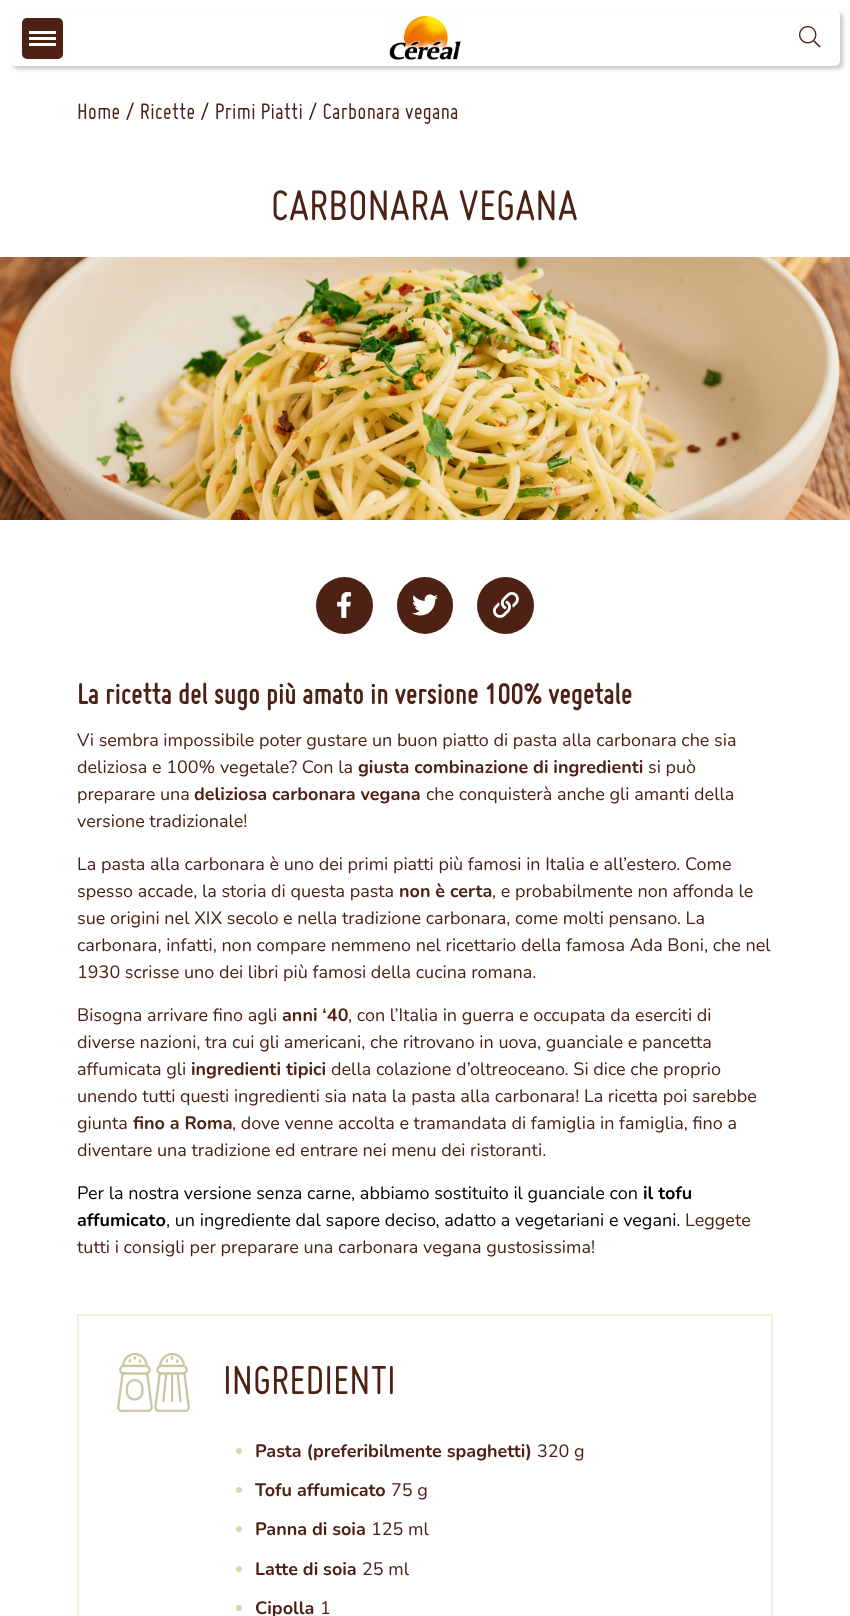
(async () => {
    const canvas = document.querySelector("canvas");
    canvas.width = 850;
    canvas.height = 1616;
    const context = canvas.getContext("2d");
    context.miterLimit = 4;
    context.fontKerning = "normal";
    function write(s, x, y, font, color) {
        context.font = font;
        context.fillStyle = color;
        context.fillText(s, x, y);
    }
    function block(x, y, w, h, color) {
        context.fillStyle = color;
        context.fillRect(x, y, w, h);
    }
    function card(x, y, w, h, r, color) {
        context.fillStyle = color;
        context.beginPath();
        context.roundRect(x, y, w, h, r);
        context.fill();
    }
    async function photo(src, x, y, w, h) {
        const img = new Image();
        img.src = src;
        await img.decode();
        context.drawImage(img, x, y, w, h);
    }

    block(0, 0, 850, 1616, "rgb(255, 255, 255)");
    context.fillStyle = "rgba(33, 37, 41, 0.26)";
    context.filter = "blur(2px)";
    context.beginPath();
    context.roundRect(13, 13, 830, 56, 5);
    context.fill();
    context.filter = "none";
    card(10, 10, 830, 56, 5, "rgb(255, 255, 255)");
    card(22, 18, 41, 41, 5, "rgb(77, 33, 20)");
    block(29, 37, 27, 3, "rgb(255, 255, 255)");
    block(29, 31, 27, 3, "rgb(255, 255, 255)");
    block(29, 43, 27, 3, "rgb(255, 255, 255)");
    await photo("media/1.png", 389, 16, 72, 44);
    await photo("media/2.png", 799, 26, 22, 22);
    write("Home / Ricette / Primi Piatti / Carbonara vegana", 77, 119, "24.4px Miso", "rgb(77, 33, 20)");
    write("CARBONARA VEGANA", 271, 220, "46.5px Miso", "rgb(77, 33, 20)");
    await photo("media/3.png", 0, 257, 850, 263);
    context.beginPath();
    context.arc(344.5, 605.5, 28.5, 0, Math.PI * 2);
    context.fill();
    await photo("media/4.png", 337, 592, 15, 26);
    card(397, 577, 56, 57, 28, "rgb(77, 33, 20)");
    await photo("media/5.png", 412, 594, 26, 22);
    context.beginPath();
    context.arc(505.5, 605.5, 28.5, 0, Math.PI * 2);
    context.fill();
    await photo("media/6.png", 493, 592, 26, 26);
    write("La ricetta del sugo più amato in versione 100% vegetale", 77, 704, "bold 31.25px Miso", "rgb(77, 33, 20)");
    write("Vi sembra impossibile poter gustare un buon piatto di pasta alla carbonara che sia", 77, 746, "18px Nunito", "rgb(77, 33, 20)");
    write("deliziosa e 100% vegetale? Con la", 77, 773, "18px Nunito", "rgb(77, 33, 20)");
    write("giusta combinazione di ingredienti", 358, 773, "bold 18px Nunito", "rgb(77, 33, 20)");
    write("si può", 648, 773, "18px Nunito", "rgb(77, 33, 20)");
    write("preparare una", 77, 800, "18px Nunito", "rgb(77, 33, 20)");
    write("deliziosa carbonara vegana", 194, 800, "bold 18px Nunito", "rgb(77, 33, 20)");
    write("che conquisterà anche gli amanti della", 426, 800, "18px Nunito", "rgb(77, 33, 20)");
    write("versione tradizionale!", 77, 827, "18px Nunito", "rgb(77, 33, 20)");
    write("La pasta alla carbonara è uno dei primi piatti più famosi in Italia e all’estero. Come", 77, 870, "18px Nunito", "rgb(77, 33, 20)");
    write("spesso accade, la storia di questa pasta", 77, 897, "18px Nunito", "rgb(77, 33, 20)");
    write("non è certa", 399, 897, "bold 18px Nunito", "rgb(77, 33, 20)");
    write(", e probabilmente non affonda le", 492, 897, "18px Nunito", "rgb(77, 33, 20)");
    write("sue origini nel XIX secolo e nella tradizione carbonara, come molti pensano. La", 77, 924, "18px Nunito", "rgb(77, 33, 20)");
    write("carbonara, infatti, non compare nemmeno nel ricettario della famosa Ada Boni, che nel", 77, 951, "18px Nunito", "rgb(77, 33, 20)");
    write("1930 scrisse uno dei libri più famosi della cucina romana.", 77, 978, "18px Nunito", "rgb(77, 33, 20)");
    write("Bisogna arrivare fino agli", 77, 1021, "18px Nunito", "rgb(77, 33, 20)");
    write("anni ‘40", 282, 1021, "bold 18px Nunito", "rgb(77, 33, 20)");
    write(", con l’Italia in guerra e occupata da eserciti di", 348, 1021, "18px Nunito", "rgb(77, 33, 20)");
    write("diverse nazioni, tra cui gli americani, che ritrovano in uova, guanciale e pancetta", 77, 1048, "18px Nunito", "rgb(77, 33, 20)");
    write("affumicata gli", 77, 1075, "18px Nunito", "rgb(77, 33, 20)");
    write("ingredienti tipici", 191, 1075, "bold 18px Nunito", "rgb(77, 33, 20)");
    write("della colazione d’oltreoceano. Si dice che proprio", 331, 1075, "18px Nunito", "rgb(77, 33, 20)");
    write("unendo tutti questi ingredienti sia nata la pasta alla carbonara! La ricetta poi sarebbe", 77, 1102, "18px Nunito", "rgb(77, 33, 20)");
    write("giunta", 77, 1129, "18px Nunito", "rgb(77, 33, 20)");
    write("fino a Roma", 133, 1129, "bold 18px Nunito", "rgb(77, 33, 20)");
    write(", dove venne accolta e tramandata di famiglia in famiglia, fino a", 232, 1129, "18px Nunito", "rgb(77, 33, 20)");
    write("diventare una tradizione ed entrare nei menu dei ristoranti.", 77, 1156, "18px Nunito", "rgb(77, 33, 20)");
    write("Per la nostra versione senza carne, abbiamo sostituito il guanciale con", 77, 1199, "18px Nunito", "rgb(0, 0, 0)");
    write("il tofu", 643, 1199, "bold 18px Nunito", "rgb(0, 0, 0)");
    write("affumicato", 77, 1226, "bold 18px Nunito", "rgb(0, 0, 0)");
    write(", un ingrediente dal sapore deciso, adatto a vegetariani e vegani.", 166, 1226, "18px Nunito", "rgb(0, 0, 0)");
    write("Leggete", 685, 1226, "18px Nunito", "rgb(77, 33, 20)");
    write("tutti i consigli per preparare una carbonara vegana gustosissima!", 77, 1253, "18px Nunito", "rgb(77, 33, 20)");
    context.strokeStyle = "rgb(242, 239, 223)";
    context.lineWidth = 2;
    context.strokeRect(78, 1315, 694, 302);
    await photo("media/7.png", 117, 1353, 73, 59);
    write("INGREDIENTI", 223, 1394, "44px Miso", "rgb(77, 33, 20)");
    context.fillStyle = "rgb(221, 212, 177)";
    context.beginPath();
    context.arc(239, 1451, 3, 0, Math.PI * 2);
    context.fill();
    write("Pasta (preferibilmente spaghetti)", 255, 1457, "bold 18px Nunito", "rgb(77, 33, 20)");
    write("320 g", 537, 1457, "18px Nunito", "rgb(77, 33, 20)");
    context.fillStyle = "rgb(221, 212, 177)";
    context.beginPath();
    context.arc(239, 1490, 3, 0, Math.PI * 2);
    context.fill();
    write("Tofu affumicato", 255, 1496, "bold 18px Nunito", "rgb(77, 33, 20)");
    write("75 g", 391, 1496, "18px Nunito", "rgb(77, 33, 20)");
    context.fillStyle = "rgb(221, 212, 177)";
    context.beginPath();
    context.arc(239, 1529, 3, 0, Math.PI * 2);
    context.fill();
    write("Panna di soia", 255, 1535, "bold 18px Nunito", "rgb(77, 33, 20)");
    write("125 ml", 371, 1535, "18px Nunito", "rgb(77, 33, 20)");
    context.fillStyle = "rgb(221, 212, 177)";
    context.beginPath();
    context.arc(239, 1569, 3, 0, Math.PI * 2);
    context.fill();
    write("Latte di soia", 255, 1575, "bold 18px Nunito", "rgb(77, 33, 20)");
    write("25 ml", 362, 1575, "18px Nunito", "rgb(77, 33, 20)");
    context.fillStyle = "rgb(221, 212, 177)";
    context.beginPath();
    context.arc(239, 1608, 3, 0, Math.PI * 2);
    context.fill();
    write("Cipolla", 255, 1614, "bold 18px Nunito", "rgb(77, 33, 20)");
    write("1", 320, 1614, "18px Nunito", "rgb(77, 33, 20)");
})();
